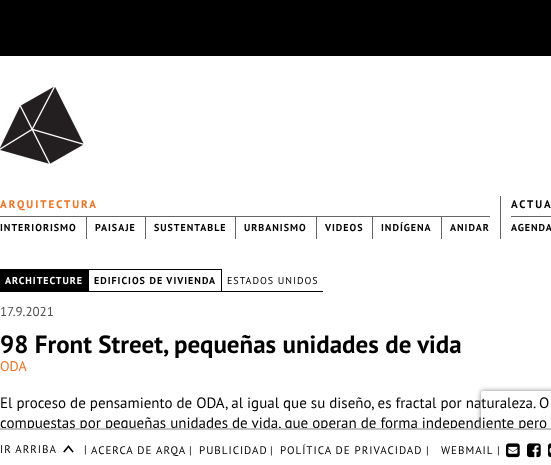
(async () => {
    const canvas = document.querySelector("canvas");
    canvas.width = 551;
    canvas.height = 465;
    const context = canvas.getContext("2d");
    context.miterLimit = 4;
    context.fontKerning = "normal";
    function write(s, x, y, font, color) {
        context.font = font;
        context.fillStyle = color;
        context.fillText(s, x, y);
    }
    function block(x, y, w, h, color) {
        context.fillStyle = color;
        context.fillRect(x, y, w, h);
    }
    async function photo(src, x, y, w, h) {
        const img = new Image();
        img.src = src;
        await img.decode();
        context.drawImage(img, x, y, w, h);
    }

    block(0, 0, 551, 465, "rgb(255, 255, 255)");
    block(0, 0, 551, 56, "rgb(0, 0, 0)");
    await photo("media/1.png", 0, 87, 84, 77);
    block(500, 196, 1, 43, "rgb(102, 102, 102)");
    context.letterSpacing = "2px";
    write("ARQUITECTURA", 0, 208, "bold 11px PT Sans", "rgb(242, 113, 33)");
    block(0, 216, 490, 1, "rgb(102, 102, 102)");
    block(86, 216, 1, 23, "rgb(102, 102, 102)");
    context.letterSpacing = "1px";
    write("INTERIORISMO", 0, 231, "bold 10px PT Sans", "rgb(0, 0, 0)");
    block(145, 216, 1, 23, "rgb(102, 102, 102)");
    write("PAISAJE", 95, 231, "bold 10px PT Sans", "rgb(0, 0, 0)");
    block(235, 216, 1, 23, "rgb(102, 102, 102)");
    write("SUSTENTABLE", 154, 231, "bold 10px PT Sans", "rgb(0, 0, 0)");
    block(316, 216, 1, 23, "rgb(102, 102, 102)");
    write("URBANISMO", 244, 231, "bold 10px PT Sans", "rgb(0, 0, 0)");
    block(372, 216, 1, 23, "rgb(102, 102, 102)");
    write("VIDEOS", 325, 231, "bold 10px PT Sans", "rgb(0, 0, 0)");
    block(441, 216, 1, 23, "rgb(102, 102, 102)");
    write("INDÍGENA", 381, 231, "bold 10px PT Sans", "rgb(0, 0, 0)");
    write("ANIDAR", 450, 231, "bold 10px PT Sans", "rgb(0, 0, 0)");
    context.letterSpacing = "2px";
    write("ACTUA", 511, 208, "bold 11px PT Sans", "rgb(0, 0, 0)");
    block(511, 216, 40, 1, "rgb(102, 102, 102)");
    context.letterSpacing = "1px";
    write("AGENDA", 511, 231, "bold 10px PT Sans", "rgb(0, 0, 0)");
    block(0, 269, 88, 23, "rgb(0, 0, 0)");
    write("ARCHITECTURE", 5, 284, "bold 10px PT Sans", "rgb(255, 255, 255)");
    context.strokeStyle = "rgb(0, 0, 0)";
    context.strokeRect(88.5, 269.5, 133, 22);
    write("EDIFICIOS DE VIVIENDA", 94, 284, "bold 10px PT Sans", "rgb(0, 0, 0)");
    block(222, 291, 101, 1, "rgb(0, 0, 0)");
    write("ESTADOS UNIDOS", 227, 284, "10px PT Sans", "rgb(0, 0, 0)");
    context.letterSpacing = "0px";
    write("17.9.2021", 0, 316, "13px PT Sans", "rgb(77, 77, 77)");
    write("98 Front Street, pequeñas unidades de vida", 0, 353, "bold 25px PT Sans", "rgb(0, 0, 0)");
    write("ODA", 0, 371, "14px PT Sans", "rgb(242, 113, 33)");
    write("El proceso de pensamiento de ODA, al igual que su diseño, es fractal por naturaleza. O", 0, 408, "15px PT Sans", "rgb(0, 0, 0)");
    write("compuestas por pequeñas unidades de vida, que operan de forma independiente pero", 0, 428, "15px PT Sans", "rgb(0, 0, 0)");
    context.save();
    context.beginPath();
    context.moveTo(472, 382);
    context.lineTo(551, 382);
    context.lineTo(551, 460);
    context.lineTo(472, 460);
    context.closePath();
    context.moveTo(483, 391);
    context.lineTo(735, 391);
    context.bezierCurveTo(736, 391, 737, 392, 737, 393);
    context.lineTo(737, 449);
    context.bezierCurveTo(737, 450, 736, 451, 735, 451);
    context.lineTo(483, 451);
    context.bezierCurveTo(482, 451, 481, 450, 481, 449);
    context.lineTo(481, 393);
    context.bezierCurveTo(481, 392, 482, 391, 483, 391);
    context.closePath();
    context.clip("evenodd");
    context.fillStyle = "rgb(128, 128, 128)";
    context.filter = "blur(2.5px)";
    context.beginPath();
    context.roundRect(481, 391, 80, 60, 2);
    context.fill();
    context.filter = "none";
    context.restore();
    block(27, 430, 524, 26, "rgb(255, 255, 255)");
    block(0, 428, 551, 2, "rgb(193, 193, 193)");
    context.letterSpacing = "1px";
    write("IR ARRIBA", 0, 453, "11px PT Sans", "rgb(0, 0, 0)");
    await photo("media/2.png", 63, 445, 11, 8);
    write("|", 84, 453, "11px PT Sans", "rgb(0, 0, 0)");
    write("ACERCA DE ARQA", 91, 454, "11px PT Sans", "rgb(0, 0, 0)");
    write("|", 189, 454, "11px PT Sans", "rgb(0, 0, 0)");
    write("PUBLICIDAD", 199, 454, "11px PT Sans", "rgb(0, 0, 0)");
    write("|", 270, 454, "11px PT Sans", "rgb(0, 0, 0)");
    write("POLÍTICA DE PRIVACIDAD", 280, 454, "11px PT Sans", "rgb(0, 0, 0)");
    write("|", 426, 454, "11px PT Sans", "rgb(0, 0, 0)");
    write("WEBMAIL", 441, 454, "11px PT Sans", "rgb(0, 0, 0)");
    write("|", 497, 454, "11px PT Sans", "rgb(0, 0, 0)");
    await photo("media/3.png", 506, 443, 14, 15);
    await photo("media/4.png", 527, 443, 14, 15);
    await photo("media/5.png", 548, 443, 3, 15);
})();
